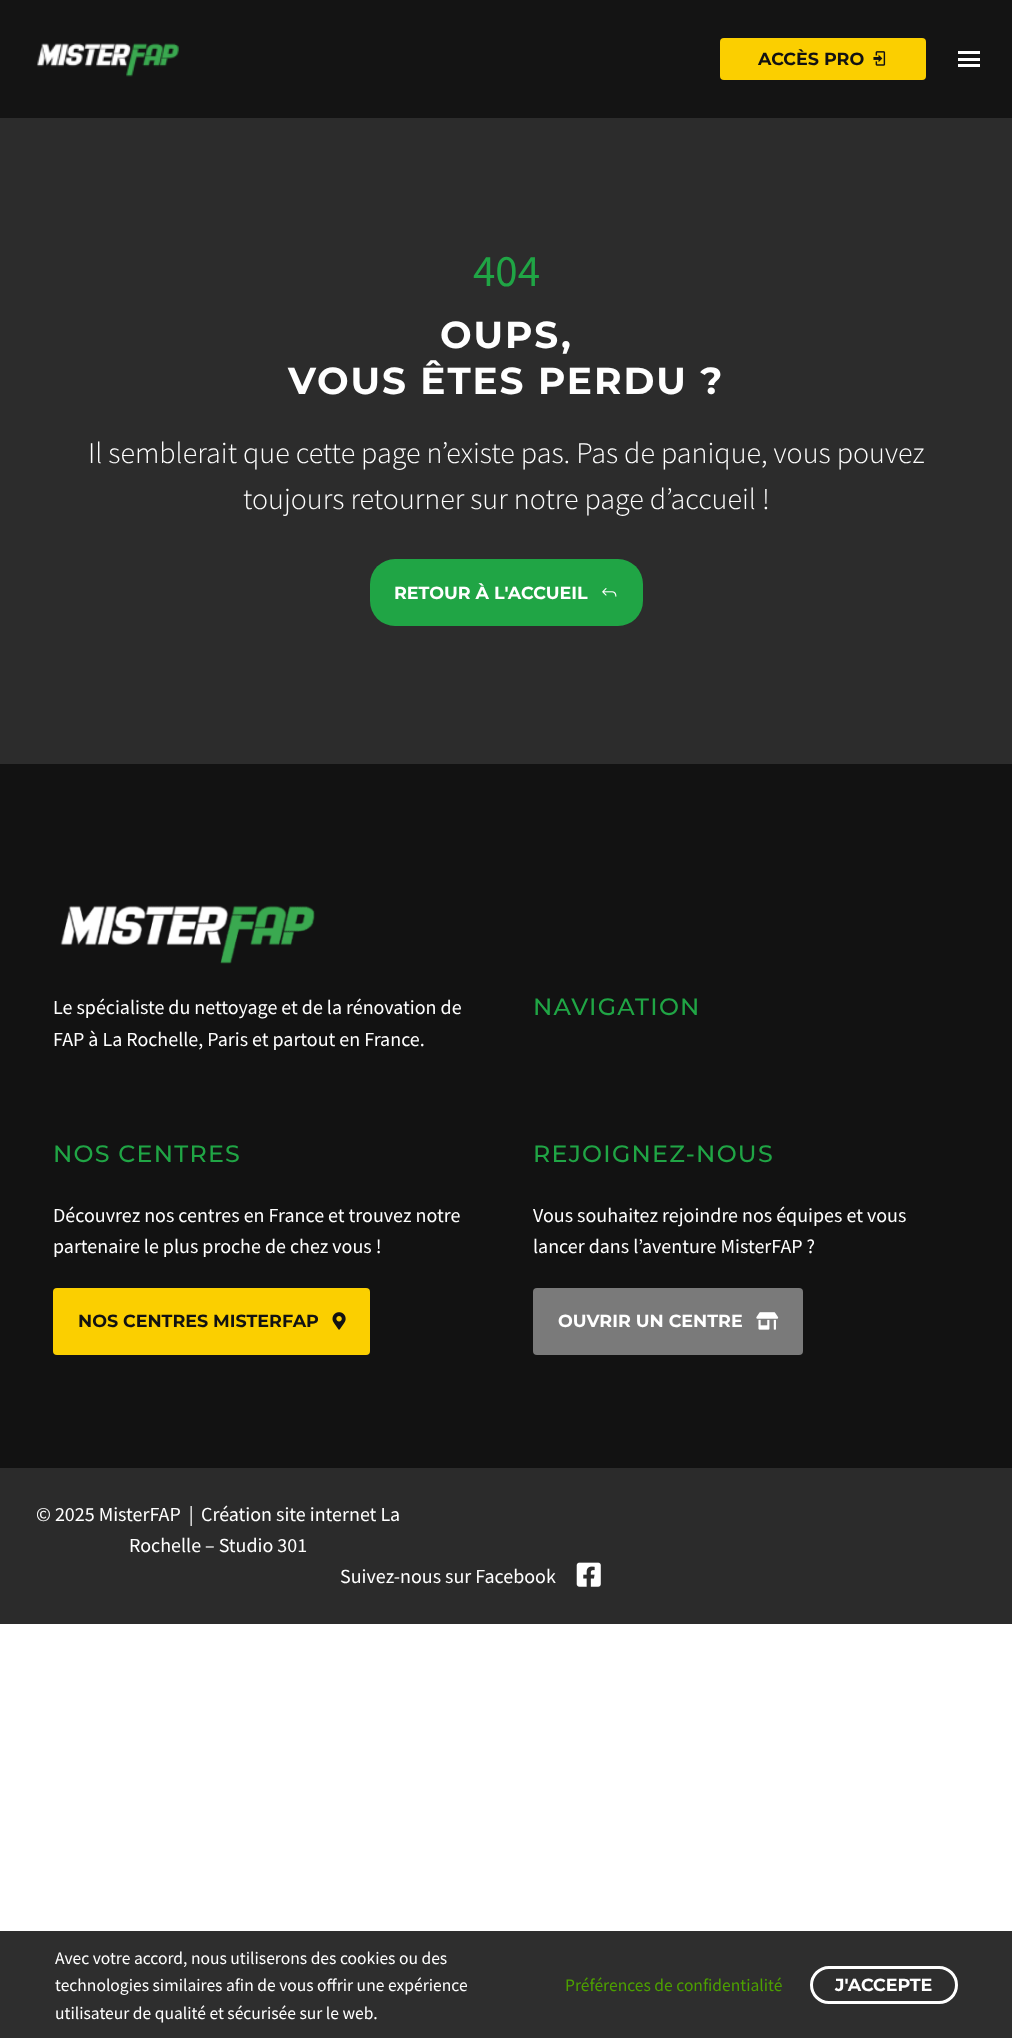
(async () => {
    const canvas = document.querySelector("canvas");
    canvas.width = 1012;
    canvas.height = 2038;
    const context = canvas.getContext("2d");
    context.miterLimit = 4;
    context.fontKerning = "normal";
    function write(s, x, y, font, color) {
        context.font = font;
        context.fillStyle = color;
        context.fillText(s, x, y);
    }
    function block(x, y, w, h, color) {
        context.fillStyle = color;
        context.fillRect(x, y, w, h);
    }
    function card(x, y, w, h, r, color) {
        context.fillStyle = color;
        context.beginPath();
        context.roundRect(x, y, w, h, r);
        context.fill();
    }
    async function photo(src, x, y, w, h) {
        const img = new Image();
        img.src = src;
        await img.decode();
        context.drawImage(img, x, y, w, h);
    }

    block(0, 0, 1012, 2038, "rgb(255, 255, 255)");
    block(0, 1931, 1012, 107, "rgb(46, 46, 46)");
    block(0, 0, 1012, 118, "rgb(20, 20, 20)");
    await photo("media/1.png", 36, 43, 143, 34);
    card(720, 38, 206, 42, 4, "rgb(251, 207, 0)");
    write("ACCÈS PRO", 758, 65, "bold 17.5px Montserrat", "rgb(18, 18, 18)");
    await photo("media/2.png", 873, 51, 13, 15);
    block(958, 51, 22, 3, "rgb(255, 255, 255)");
    block(958, 58, 22, 3, "rgb(255, 255, 255)");
    block(958, 64, 22, 3, "rgb(255, 255, 255)");
    block(0, 118, 1012, 646, "rgb(44, 44, 44)");
    write("404", 473, 286, "45px Source Sans Pro", "rgb(32, 165, 69)");
    context.letterSpacing = "1.9px";
    write("OUPS,", 440, 348, "bold 37.5px Montserrat", "rgb(255, 255, 255)");
    write("VOUS ÊTES PERDU ?", 288, 394, "bold 37.5px Montserrat", "rgb(255, 255, 255)");
    context.letterSpacing = "0px";
    write("Il semblerait que cette page n’existe pas. Pas de panique, vous pouvez", 88, 463, "300 30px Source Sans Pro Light", "rgb(255, 255, 255)");
    write("toujours retourner sur notre page d’accueil !", 243, 509, "300 30px Source Sans Pro Light", "rgb(255, 255, 255)");
    card(370, 559, 273, 67, 25, "rgb(32, 165, 69)");
    write("RETOUR À L'ACCUEIL", 394, 599, "bold 17.5px Montserrat", "rgb(255, 255, 255)");
    await photo("media/3.png", 602, 588, 15, 9);
    block(0, 764, 1012, 704, "rgb(18, 18, 18)");
    await photo("media/4.png", 60, 905, 255, 59);
    write("Le spécialiste du nettoyage et de la rénovation de", 53, 1014, "20px Source Sans Pro", "rgb(255, 255, 255)");
    write("FAP à La Rochelle, Paris et partout en France.", 53, 1046, "20px Source Sans Pro", "rgb(255, 255, 255)");
    context.letterSpacing = "1.25px";
    write("NAVIGATION", 533, 1015, "500 23.75px Montserrat", "rgb(32, 165, 69)");
    write("NOS CENTRES", 53, 1162, "500 23.75px Montserrat", "rgb(32, 165, 69)");
    context.letterSpacing = "0px";
    write("Découvrez nos centres en France et trouvez notre", 53, 1222, "20px Source Sans Pro", "rgb(255, 255, 255)");
    write("partenaire le plus proche de chez vous !", 53, 1253, "20px Source Sans Pro", "rgb(255, 255, 255)");
    card(53, 1288, 317, 67, 4, "rgb(251, 207, 0)");
    write("NOS CENTRES MISTERFAP", 78, 1327, "bold 17.5px Montserrat", "rgb(18, 18, 18)");
    await photo("media/5.png", 332, 1312, 14, 18);
    context.letterSpacing = "1.25px";
    write("REJOIGNEZ-NOUS", 533, 1162, "500 23.75px Montserrat", "rgb(32, 165, 69)");
    context.letterSpacing = "0px";
    write("Vous souhaitez rejoindre nos équipes et vous", 533, 1222, "20px Source Sans Pro", "rgb(255, 255, 255)");
    write("lancer dans l’aventure MisterFAP ?", 533, 1253, "20px Source Sans Pro", "rgb(255, 255, 255)");
    card(533, 1288, 270, 67, 4, "rgb(122, 122, 122)");
    write("OUVRIR UN CENTRE", 558, 1327, "bold 17.5px Montserrat", "rgb(255, 255, 255)");
    await photo("media/6.png", 756, 1312, 23, 18);
    block(0, 1468, 1012, 156, "rgb(43, 43, 43)");
    write("© 2025 MisterFAP  |", 36, 1521, "20px Source Sans Pro", "rgb(255, 255, 255)");
    write("Création site internet La", 201, 1521, "20px Source Sans Pro", "rgb(255, 255, 255)");
    write("Rochelle – Studio 301", 129, 1552, "20px Source Sans Pro", "rgb(255, 255, 255)");
    write("Suivez-nous sur Facebook", 340, 1583, "20px Source Sans Pro", "rgb(255, 255, 255)");
    await photo("media/7.png", 576, 1562, 25, 25);
    write("Avec votre accord, nous utiliserons des cookies ou des", 55, 1964, "17.5px Source Sans Pro", "rgb(255, 255, 255)");
    write("technologies similaires afin de vous offrir une expérience", 55, 1991, "17.5px Source Sans Pro", "rgb(255, 255, 255)");
    write("utilisateur de qualité et sécurisée sur le web.", 55, 2019, "17.5px Source Sans Pro", "rgb(255, 255, 255)");
    write("Préférences de confidentialité", 565, 1991, "17.5px Source Sans Pro", "rgb(77, 160, 0)");
    context.beginPath();
    context.roundRect(811.5, 1967.5, 145, 35, 17.5);
    context.strokeStyle = "rgb(255, 255, 255)";
    context.lineWidth = 3;
    context.stroke();
    write("J'ACCEPTE", 835, 1991, "bold 17.5px Montserrat", "rgb(255, 255, 255)");
})();
